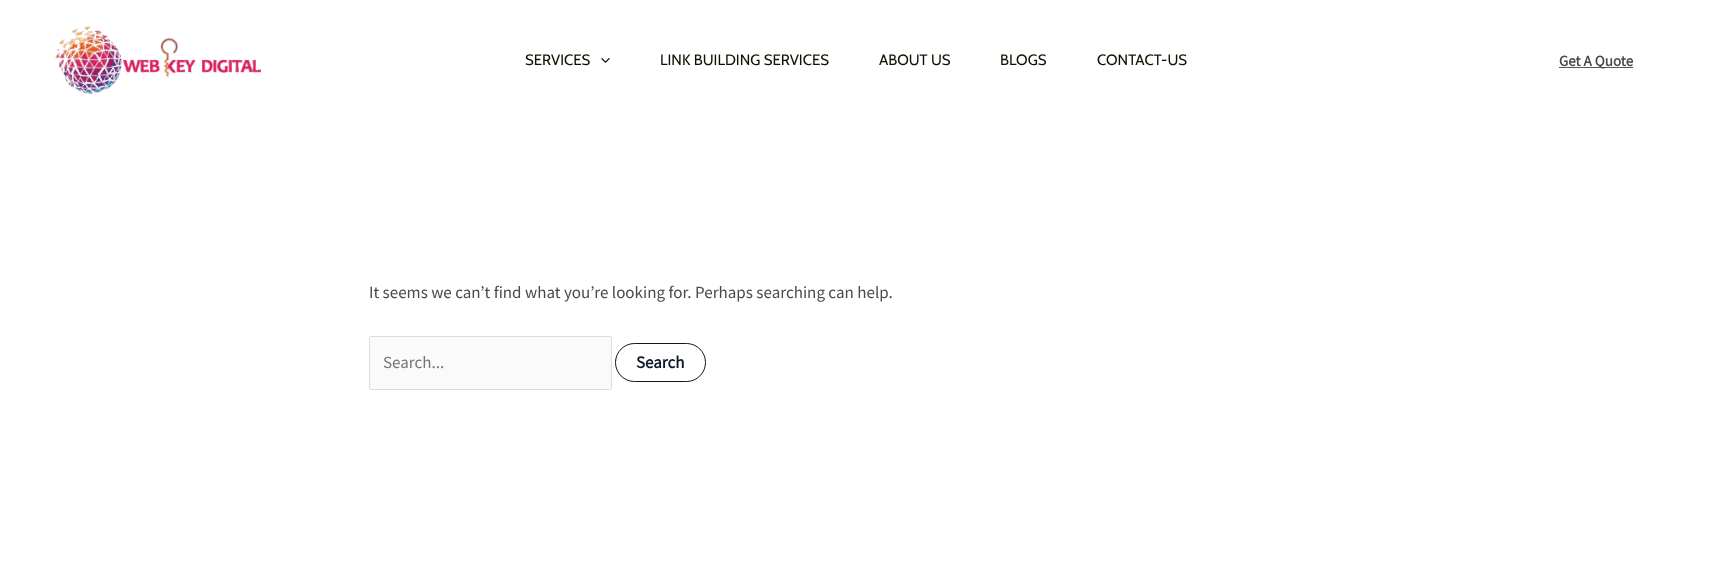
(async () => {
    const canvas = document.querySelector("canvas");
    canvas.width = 1712;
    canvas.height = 575;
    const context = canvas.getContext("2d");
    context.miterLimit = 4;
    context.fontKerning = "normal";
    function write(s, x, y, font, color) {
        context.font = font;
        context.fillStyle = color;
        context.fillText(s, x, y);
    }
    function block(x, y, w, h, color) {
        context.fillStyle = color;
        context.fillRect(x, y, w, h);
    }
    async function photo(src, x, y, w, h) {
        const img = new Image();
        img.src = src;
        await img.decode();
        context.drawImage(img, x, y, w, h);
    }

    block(0, 0, 1712, 575, "rgb(255, 255, 255)");
    await photo("media/1.png", 55, 26, 206, 68);
    write("SERVICES", 525, 65, "15px Cabin", "rgb(20, 16, 4)");
    await photo("media/2.png", 601, 58, 9, 5);
    write("LINK BUILDING SERVICES", 660, 65, "15px Cabin", "rgb(20, 16, 4)");
    write("ABOUT US", 879, 65, "15px Cabin", "rgb(20, 16, 4)");
    write("BLOGS", 1000, 65, "15px Cabin", "rgb(20, 16, 4)");
    write("CONTACT-US", 1097, 65, "15px Cabin", "rgb(20, 16, 4)");
    block(1559, 67, 74, 1, "rgb(87, 87, 87)");
    write("Get A Quote", 1559, 66, "bold 15px Source Sans Pro", "rgb(74, 74, 74)");
    write("It seems we can’t find what you’re looking for. Perhaps searching can help.", 369, 298, "17px Source Sans Pro", "rgb(74, 74, 74)");
    context.fillStyle = "rgb(250, 250, 250)";
    context.beginPath();
    context.roundRect(369.5, 336.5, 242, 53, 1.5);
    context.fill();
    context.strokeStyle = "rgb(221, 221, 221)";
    context.stroke();
    write("Search...", 383, 368, "17px Source Sans Pro", "rgb(117, 117, 117)");
    context.beginPath();
    context.roundRect(615.5, 343.5, 90, 38, 19);
    context.strokeStyle = "rgb(15, 23, 42)";
    context.stroke();
    write("Search", 636, 368, "bold 17px Source Sans Pro", "rgb(15, 23, 42)");
})();
